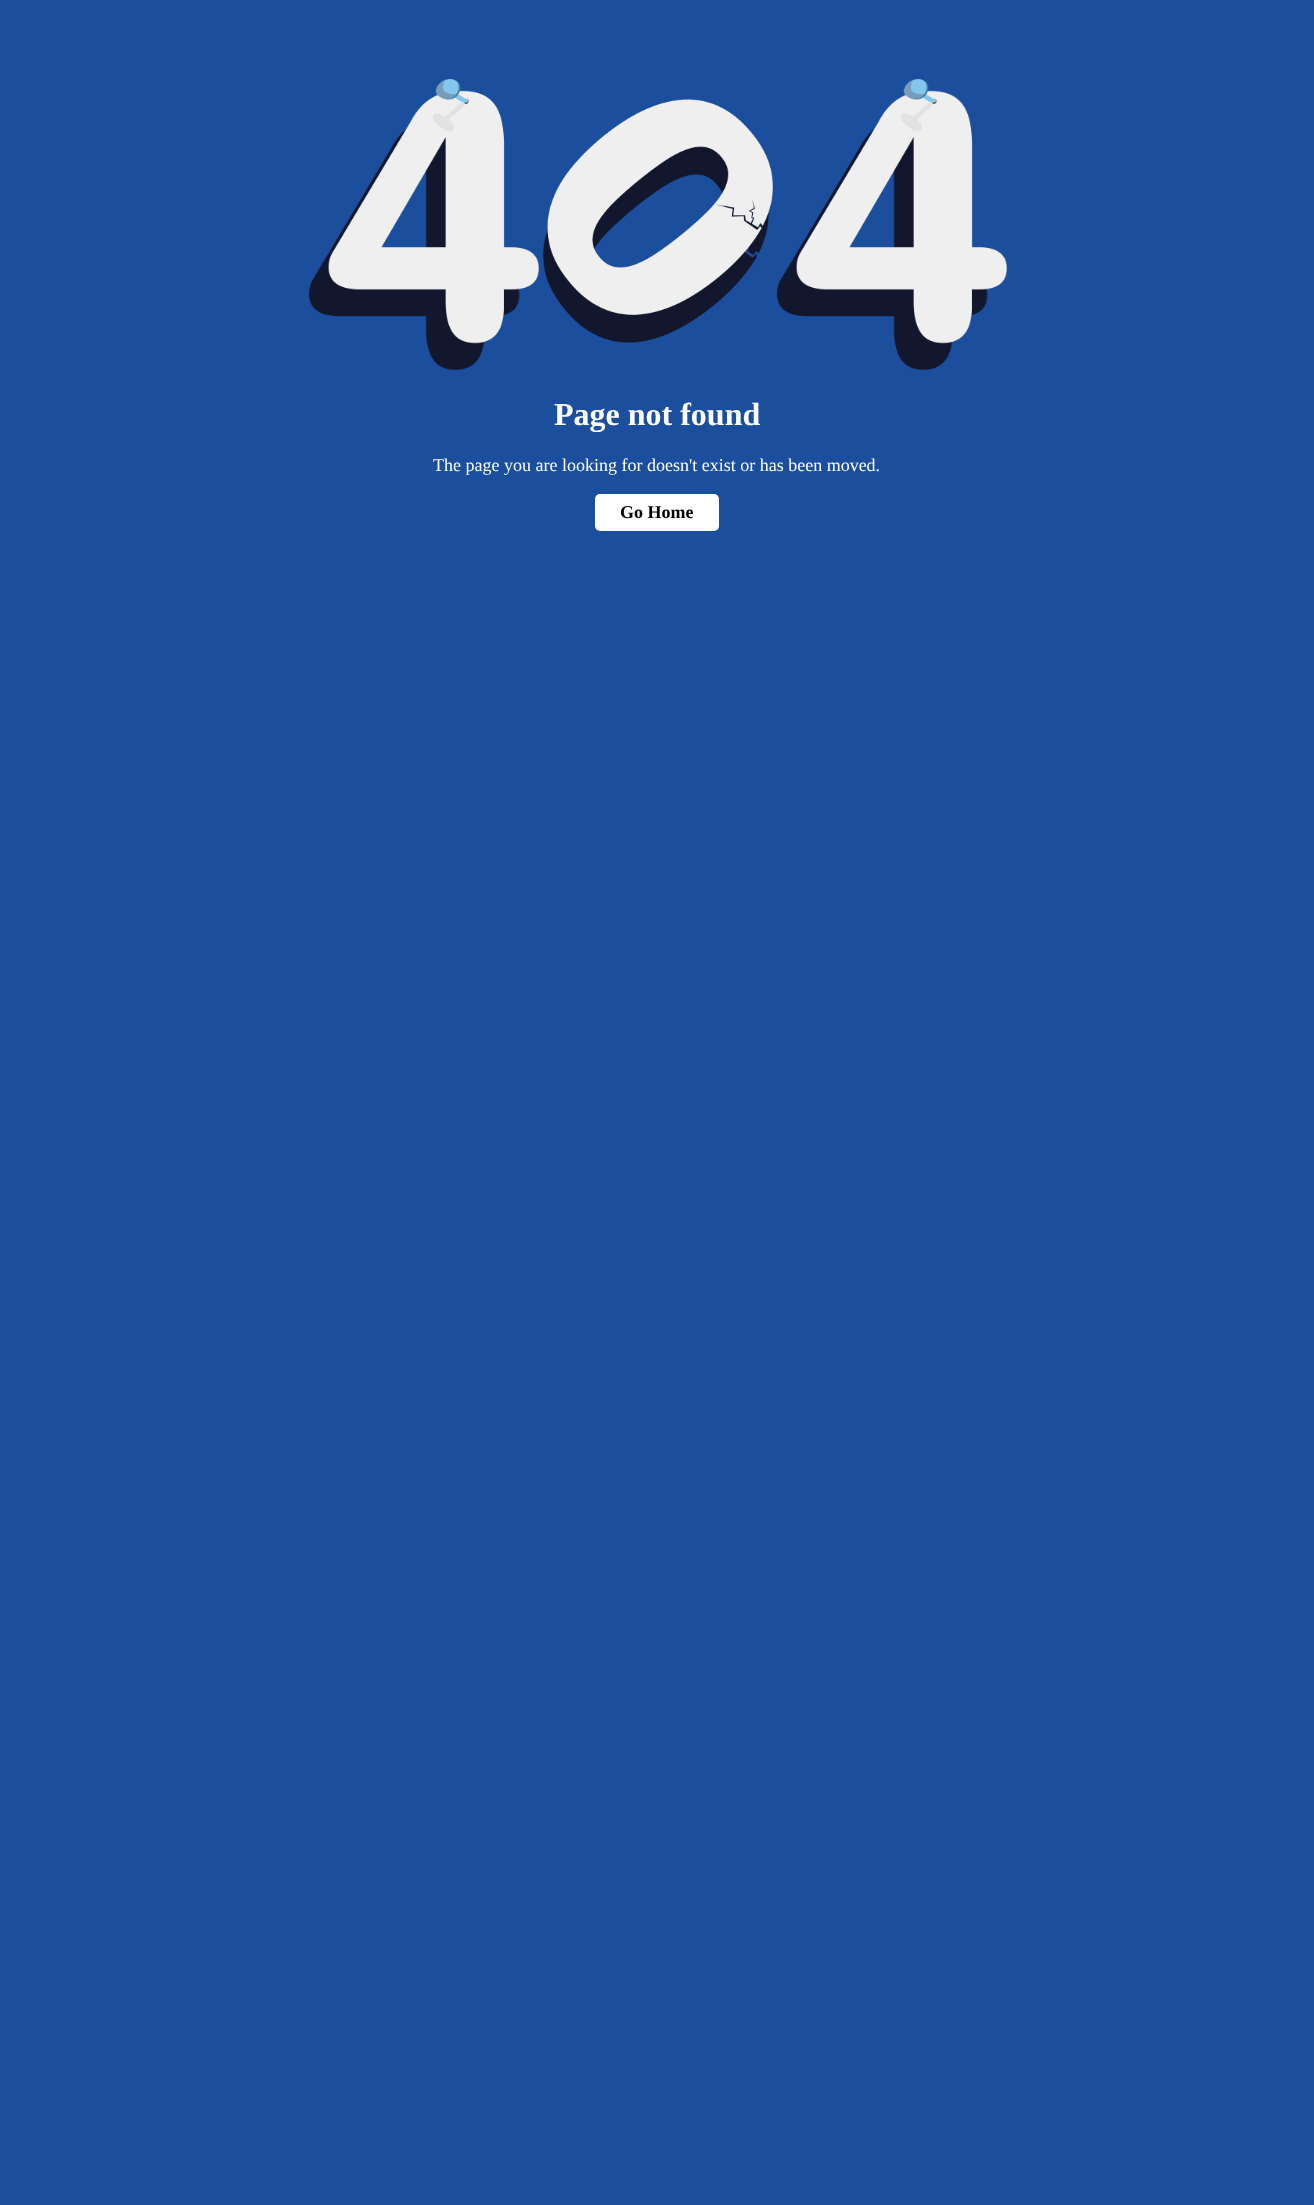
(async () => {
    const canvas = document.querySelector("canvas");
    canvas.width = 1314;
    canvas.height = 2205;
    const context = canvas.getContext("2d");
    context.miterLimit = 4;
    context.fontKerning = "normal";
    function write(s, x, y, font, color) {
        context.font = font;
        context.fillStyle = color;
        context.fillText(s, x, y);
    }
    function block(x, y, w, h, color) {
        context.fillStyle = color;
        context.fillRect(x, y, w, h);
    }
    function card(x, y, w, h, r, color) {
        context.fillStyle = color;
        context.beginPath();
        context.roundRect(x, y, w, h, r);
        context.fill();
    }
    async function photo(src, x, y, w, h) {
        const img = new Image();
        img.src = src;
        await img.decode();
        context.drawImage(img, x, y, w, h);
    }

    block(0, 0, 1314, 2205, "rgb(27, 79, 157)");
    await photo("media/1.png", 309, 79, 230, 291);
    await photo("media/2.png", 543, 99, 230, 244);
    await photo("media/3.png", 777, 79, 230, 291);
    write("Page not found", 554, 425, "bold 32px Liberation Serif", "rgb(255, 255, 255)");
    write("The page you are looking for doesn't exist or has been moved.", 433, 471, "18px Liberation Serif", "rgb(255, 255, 255)");
    card(595, 494, 124, 37, 5, "rgb(255, 255, 255)");
    write("Go Home", 620, 518, "bold 18px Liberation Serif", "rgb(0, 0, 0)");
})();
